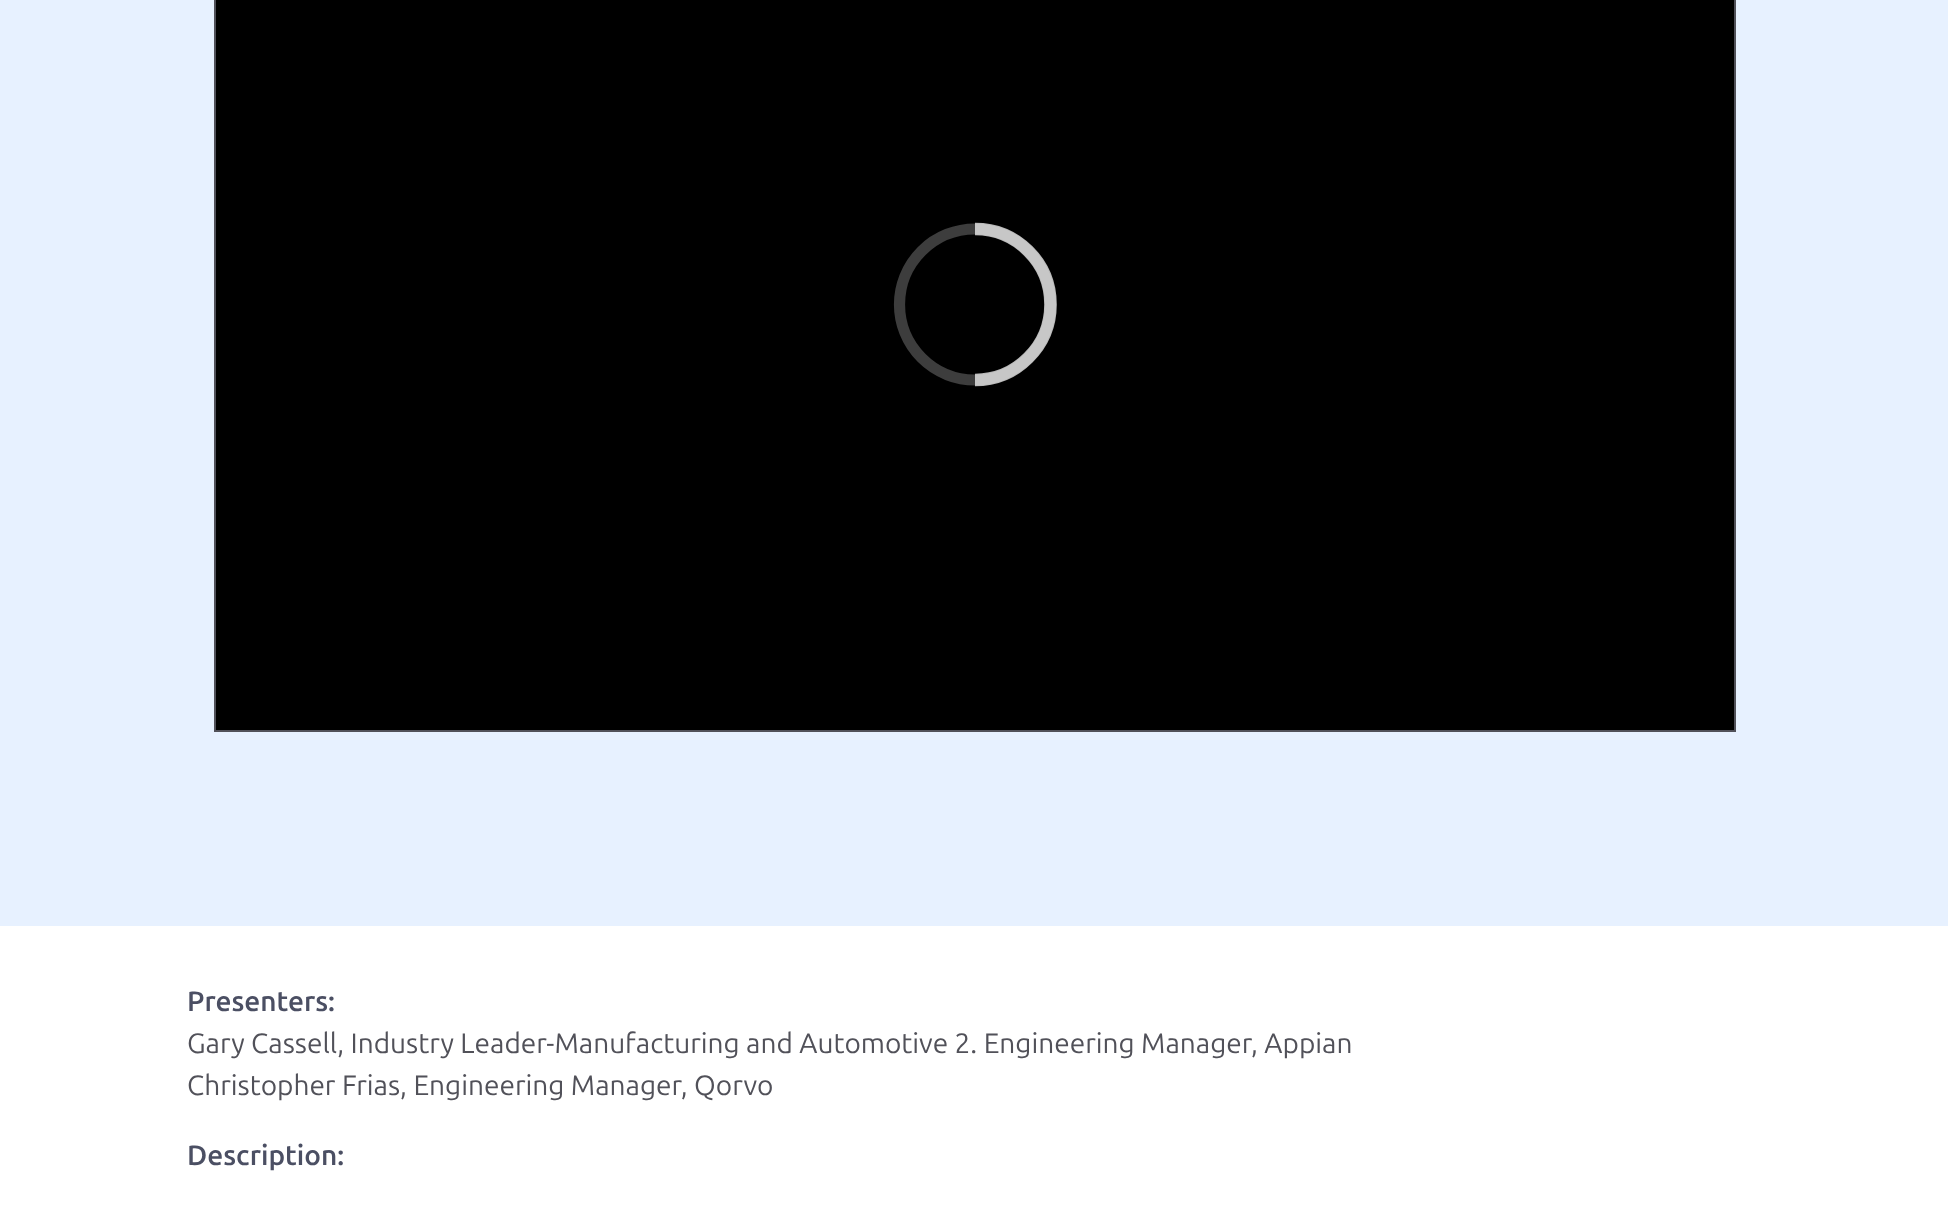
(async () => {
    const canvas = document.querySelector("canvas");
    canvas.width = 1948;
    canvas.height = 1215;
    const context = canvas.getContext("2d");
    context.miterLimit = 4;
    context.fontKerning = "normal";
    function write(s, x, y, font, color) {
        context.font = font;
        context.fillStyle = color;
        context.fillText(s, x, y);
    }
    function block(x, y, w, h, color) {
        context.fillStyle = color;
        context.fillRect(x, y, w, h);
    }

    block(0, 0, 1948, 1215, "rgb(255, 255, 255)");
    block(0, 0, 1948, 926, "rgb(231, 241, 255)");
    context.fillStyle = "rgb(0, 0, 0)";
    context.beginPath();
    context.rect(215, -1, 1520, 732);
    context.fill();
    context.strokeStyle = "rgb(81, 81, 89)";
    context.lineWidth = 2;
    context.stroke();
    context.beginPath();
    context.arc(975, 304.5, 75.5, 0, Math.PI * 2);
    context.strokeStyle = "rgb(61, 61, 61)";
    context.lineWidth = 11.2;
    context.stroke();
    context.beginPath();
    context.moveTo(975, 229);
    context.bezierCurveTo(1016.5, 229, 1050.5, 262.5, 1050.5, 304.5);
    context.bezierCurveTo(1050.5, 346, 1016.5, 380, 975, 380);
    context.strokeStyle = "rgba(245, 245, 245, 0.75)";
    context.lineWidth = 12.6;
    context.stroke();
    write("Presenters:", 187, 1011, "italic 600 28px Ubuntu Sans", "rgb(75, 79, 99)");
    write("Gary Cassell, Industry Leader-Manufacturing and Automotive 2. Engineering Manager, Appian", 187, 1053, "italic 28px Ubuntu Sans", "rgb(81, 81, 89)");
    write("Christopher Frias, Engineering Manager, Qorvo", 187, 1095, "italic 28px Ubuntu Sans", "rgb(81, 81, 89)");
    write("Description:", 187, 1165, "italic 600 28px Ubuntu Sans", "rgb(75, 79, 99)");
})();
